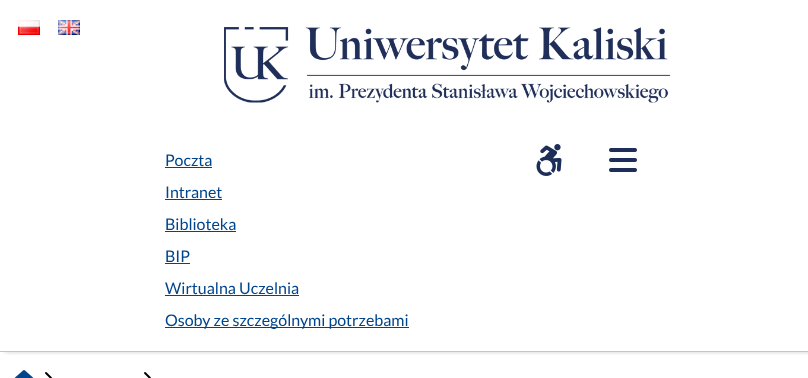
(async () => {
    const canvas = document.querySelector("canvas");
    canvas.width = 808;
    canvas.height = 378;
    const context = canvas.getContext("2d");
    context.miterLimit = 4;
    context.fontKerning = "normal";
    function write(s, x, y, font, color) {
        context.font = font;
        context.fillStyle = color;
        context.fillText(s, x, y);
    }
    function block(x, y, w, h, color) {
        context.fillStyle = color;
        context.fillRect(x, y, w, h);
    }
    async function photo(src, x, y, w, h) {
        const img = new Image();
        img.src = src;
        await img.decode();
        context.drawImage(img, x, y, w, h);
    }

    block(0, 0, 808, 378, "rgb(255, 255, 255)");
    context.save();
    context.beginPath();
    context.rect(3, 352, 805, 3);
    context.clip();
    context.fillStyle = "rgba(22, 22, 22, 0.2)";
    context.filter = "blur(2.5px)";
    context.beginPath();
    context.rect(5, 0, 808, 352);
    context.fill();
    context.filter = "none";
    context.restore();
    block(0, 351, 808, 1, "rgb(197, 197, 197)");
    await photo("media/1.png", 18, 20, 22, 15);
    await photo("media/2.png", 58, 20, 22, 15);
    await photo("media/3.png", 224, 27, 447, 76);
    write("Poczta", 165, 166, "16px Lato", "rgb(0, 69, 140)");
    block(165, 167, 47, 1, "rgb(0, 69, 140)");
    write("Intranet", 165, 198, "16px Lato", "rgb(0, 69, 140)");
    block(165, 199, 57, 1, "rgb(0, 69, 140)");
    write("Biblioteka", 165, 230, "16px Lato", "rgb(0, 69, 140)");
    block(165, 231, 71, 1, "rgb(0, 69, 140)");
    write("BIP", 165, 262, "16px Lato", "rgb(0, 69, 140)");
    block(165, 263, 25, 1, "rgb(0, 69, 140)");
    write("Wirtualna Uczelnia", 165, 294, "16px Lato", "rgb(0, 69, 140)");
    block(165, 295, 134, 1, "rgb(0, 69, 140)");
    block(165, 327, 244, 1, "rgb(0, 69, 140)");
    write("Osoby ze szczególnymi potrzebami", 165, 326, "16px Lato", "rgb(0, 69, 140)");
    await photo("media/4.png", 536, 144, 26, 32);
    await photo("media/5.png", 609, 148, 28, 24);
    await photo("media/6.png", 15, 370, 18, 8);
    await photo("media/7.png", 45, 372, 7, 6);
    await photo("media/7.png", 144, 372, 7, 6);
})();
